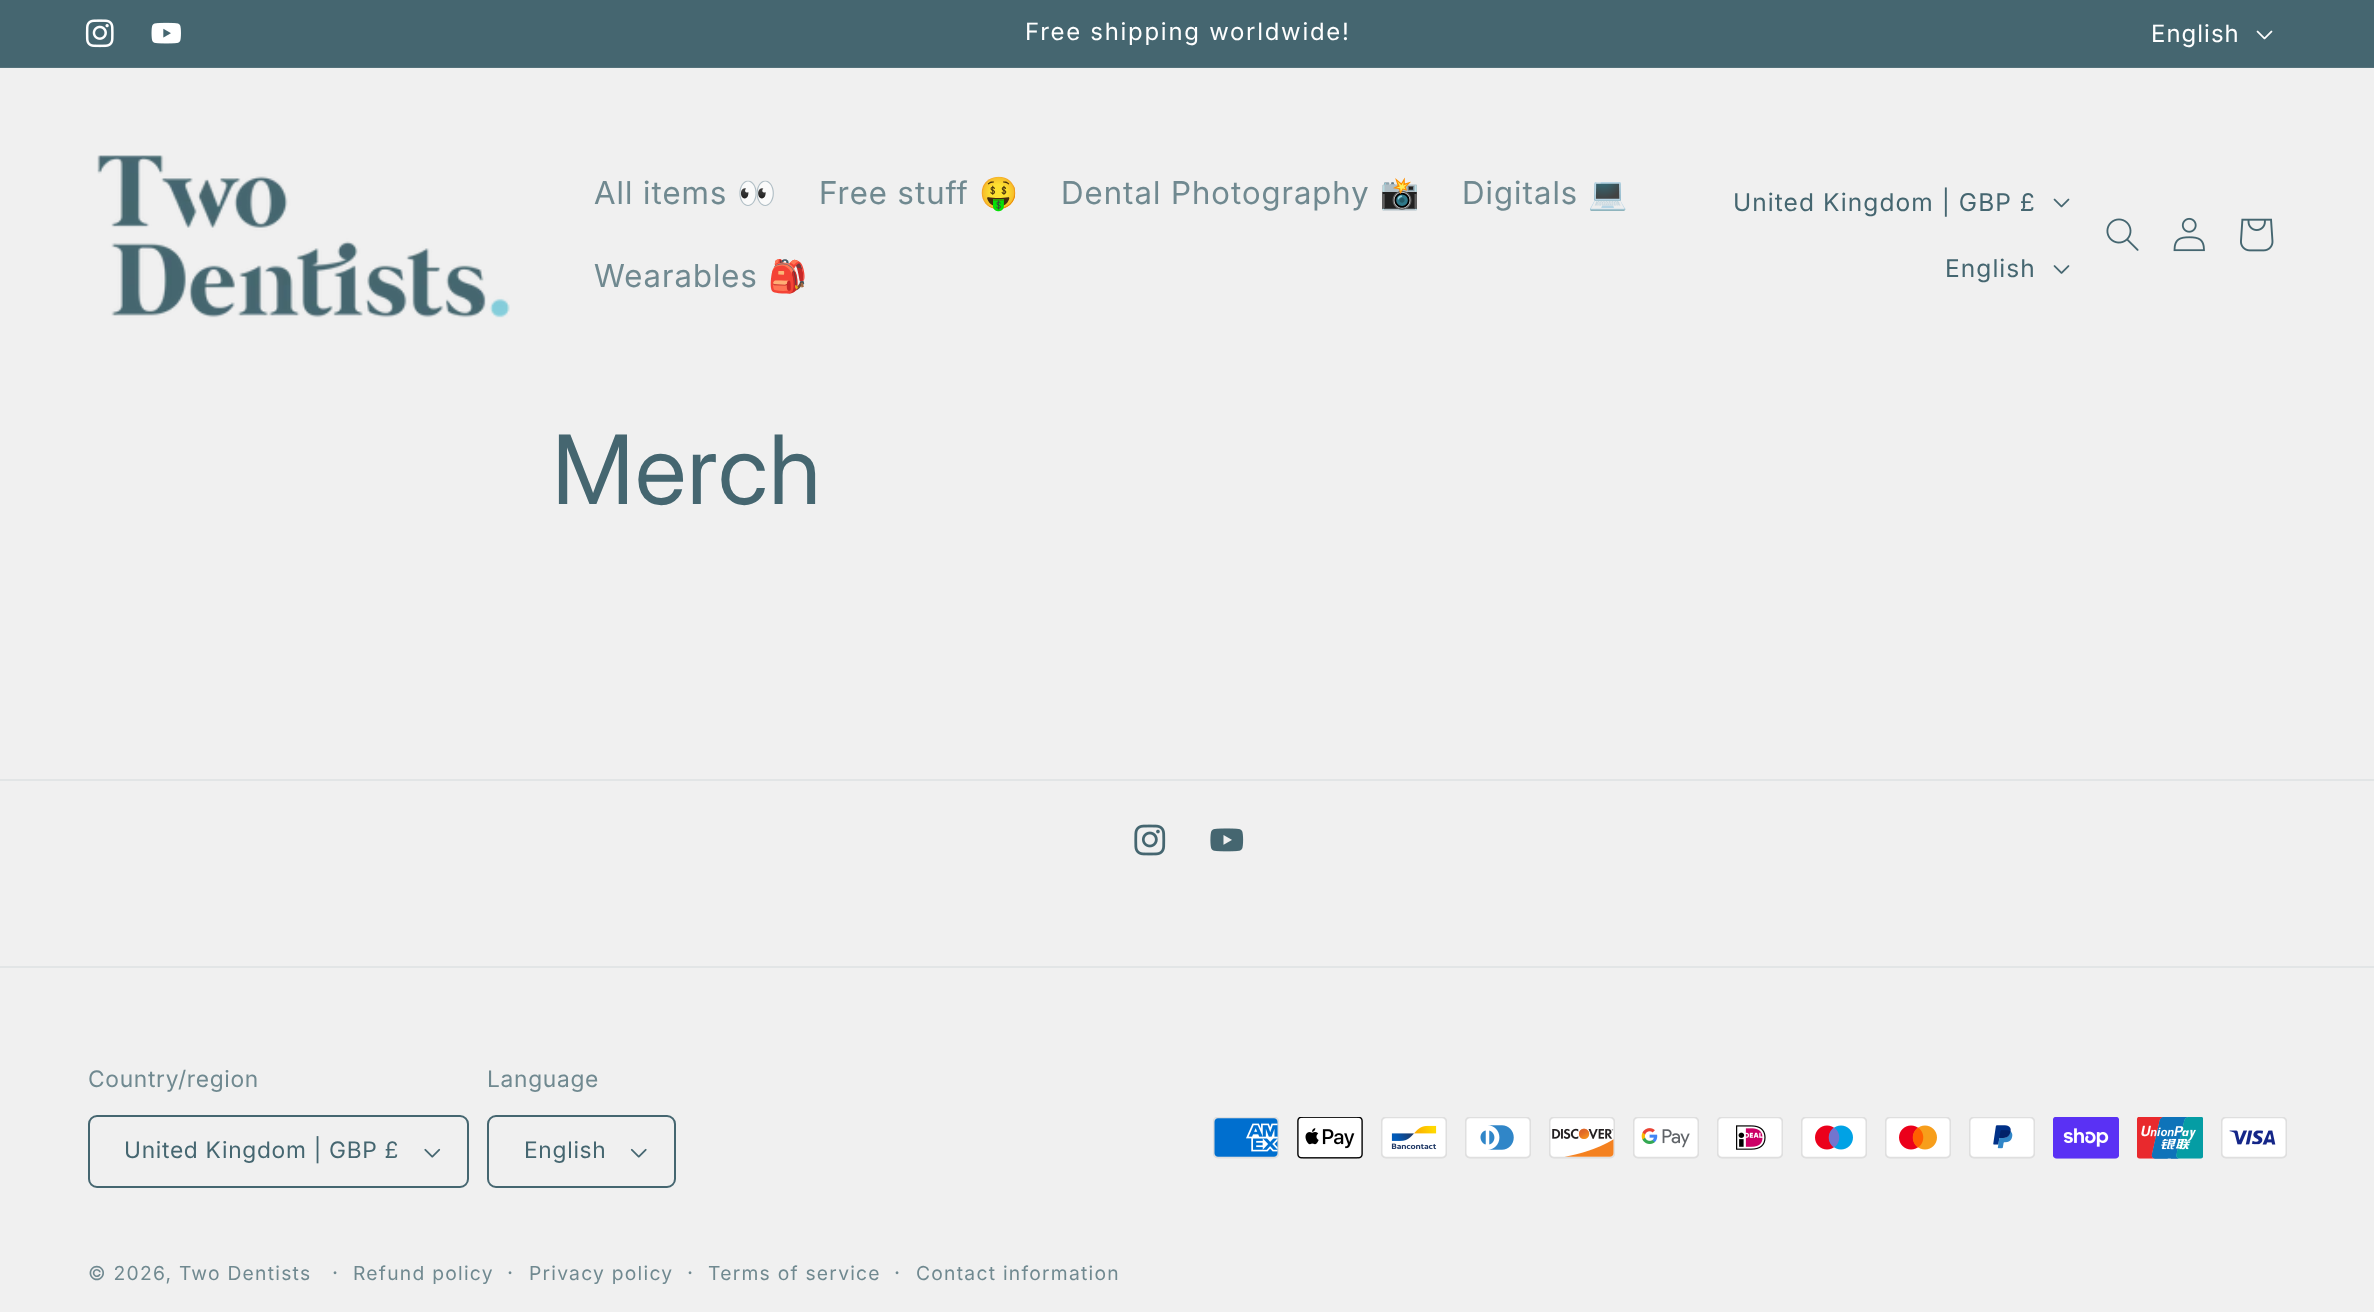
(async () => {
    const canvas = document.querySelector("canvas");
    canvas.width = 2374;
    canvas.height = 1312;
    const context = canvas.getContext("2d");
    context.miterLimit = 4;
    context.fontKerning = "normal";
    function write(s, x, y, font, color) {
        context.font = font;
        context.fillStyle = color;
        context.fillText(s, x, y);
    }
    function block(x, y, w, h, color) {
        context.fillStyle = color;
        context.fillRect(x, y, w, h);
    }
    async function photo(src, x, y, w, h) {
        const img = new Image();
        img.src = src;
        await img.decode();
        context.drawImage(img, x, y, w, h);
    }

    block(0, 0, 2374, 1312, "rgb(240, 240, 240)");
    block(0, 0, 2374, 67, "rgb(69, 102, 112)");
    block(0, 67, 2374, 1, "rgb(84, 114, 123)");
    await photo("media/1.png", 85, 19, 29, 29);
    await photo("media/2.png", 151, 22, 30, 22);
    context.letterSpacing = "1.75px";
    write("Free shipping worldwide!", 1025, 40, "23.9px 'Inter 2'", "rgb(255, 255, 255)");
    context.letterSpacing = "1.05px";
    write("English", 2151, 42, "23.9px 'Inter 2'", "rgb(255, 255, 255)");
    await photo("media/3.png", 2256, 30, 17, 10);
    await photo("media/4.png", 97, 155, 413, 163);
    write("All items", 594, 204, "31.5px 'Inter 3'", "rgb(112, 137, 144)");
    write("👀", 737, 204, "31.5px Noto Color Emoji", "rgb(112, 137, 144)");
    write("Free stuff", 819, 204, "31.5px 'Inter 3'", "rgb(112, 137, 144)");
    write("🤑", 979, 204, "31.5px Noto Color Emoji", "rgb(112, 137, 144)");
    write("Dental Photography", 1061, 204, "31.5px 'Inter 3'", "rgb(112, 137, 144)");
    write("📸", 1380, 204, "31.5px Noto Color Emoji", "rgb(112, 137, 144)");
    write("Digitals", 1462, 204, "31.5px 'Inter 3'", "rgb(112, 137, 144)");
    write("💻", 1588, 204, "31.5px Noto Color Emoji", "rgb(112, 137, 144)");
    write("Wearables", 594, 287, "31.5px 'Inter 3'", "rgb(112, 137, 144)");
    write("🎒", 768, 287, "31.5px Noto Color Emoji", "rgb(112, 137, 144)");
    write("United Kingdom | GBP £", 1733, 211, "24.5px 'Inter 2'", "rgb(69, 102, 112)");
    await photo("media/5.png", 2053, 198, 17, 10);
    write("English", 1945, 277, "24.5px 'Inter 2'", "rgb(69, 102, 112)");
    await photo("media/6.png", 2053, 265, 17, 9);
    await photo("media/7.png", 2106, 218, 33, 33);
    await photo("media/8.png", 2173, 217, 32, 35);
    await photo("media/9.png", 2240, 218, 34, 34);
    context.letterSpacing = "1px";
    write("Merch", 552, 504, "95.5px Inter", "rgb(69, 102, 112)");
    block(0, 779, 2374, 2, "rgb(226, 229, 230)");
    await photo("media/10.png", 1134, 824, 32, 32);
    await photo("media/11.png", 1210, 828, 34, 24);
    block(0, 966, 2374, 2, "rgb(226, 229, 230)");
    context.letterSpacing = "0.7px";
    write("Country/region", 88, 1087, "22.75px 'Inter 2'", "rgb(112, 137, 144)");
    await photo("media/12.png", 424, 1148, 17, 10);
    context.beginPath();
    context.roundRect(89, 1116, 379, 71, 8);
    context.strokeStyle = "rgb(69, 102, 112)";
    context.lineWidth = 2;
    context.stroke();
    write("United Kingdom | GBP £", 124, 1158, "22.75px 'Inter 2'", "rgb(69, 102, 112)");
    write("Language", 487, 1087, "22.75px 'Inter 2'", "rgb(112, 137, 144)");
    await photo("media/13.png", 630, 1148, 17, 10);
    context.beginPath();
    context.roundRect(488, 1116, 187, 71, 8);
    context.stroke();
    write("English", 524, 1158, "22.75px 'Inter 2'", "rgb(69, 102, 112)");
    await photo("media/14.png", 1213, 1117, 66, 42);
    await photo("media/15.png", 1297, 1117, 66, 42);
    await photo("media/16.png", 1381, 1117, 66, 42);
    await photo("media/17.png", 1465, 1117, 66, 42);
    await photo("media/18.png", 1549, 1117, 66, 42);
    await photo("media/19.png", 1633, 1117, 66, 42);
    await photo("media/20.png", 1717, 1117, 66, 42);
    await photo("media/21.png", 1801, 1117, 66, 42);
    await photo("media/22.png", 1885, 1117, 66, 42);
    await photo("media/23.png", 1969, 1117, 66, 42);
    await photo("media/24.png", 2053, 1117, 66, 42);
    await photo("media/25.png", 2137, 1117, 66, 42);
    await photo("media/26.png", 2221, 1117, 66, 42);
    context.letterSpacing = "1.25px";
    write("© 2026, Two Dentists", 88, 1280, "19.25px 'Inter 2'", "rgb(112, 137, 144)");
    write("·", 332, 1280, "21px 'Inter 2'", "rgb(112, 137, 144)");
    write("Refund policy", 353, 1280, "19.25px 'Inter 2'", "rgb(112, 137, 144)");
    write("·", 507, 1280, "21px 'Inter 2'", "rgb(112, 137, 144)");
    write("Privacy policy", 529, 1280, "19.25px 'Inter 2'", "rgb(112, 137, 144)");
    write("·", 687, 1280, "21px 'Inter 2'", "rgb(112, 137, 144)");
    write("Terms of service", 708, 1280, "19.25px 'Inter 2'", "rgb(112, 137, 144)");
    write("·", 894, 1280, "21px 'Inter 2'", "rgb(112, 137, 144)");
    write("Contact information", 916, 1280, "19.25px 'Inter 2'", "rgb(112, 137, 144)");
})();
